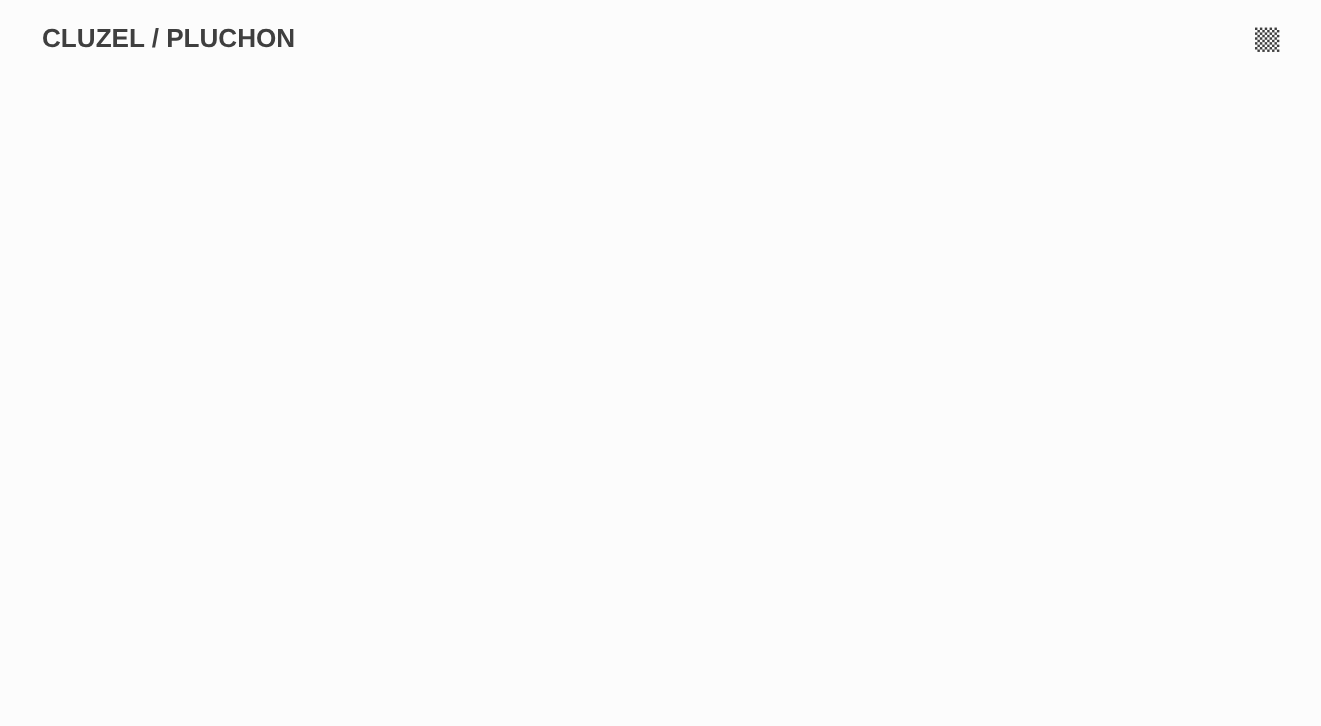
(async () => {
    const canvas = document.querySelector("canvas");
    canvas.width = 1321;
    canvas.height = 726;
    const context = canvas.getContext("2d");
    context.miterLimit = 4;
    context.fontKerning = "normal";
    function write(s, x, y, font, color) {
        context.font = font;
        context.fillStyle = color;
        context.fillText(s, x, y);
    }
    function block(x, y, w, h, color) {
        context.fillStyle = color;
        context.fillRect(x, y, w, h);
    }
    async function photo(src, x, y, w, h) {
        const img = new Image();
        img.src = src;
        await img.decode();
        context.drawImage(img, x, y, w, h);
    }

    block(0, 0, 1321, 726, "rgb(252, 252, 252)");
    write("CLUZEL / PLUCHON", 42, 47, "bold 26.1px Liberation Sans", "rgb(63, 63, 63)");
    await photo("media/1.png", 1255, 27, 25, 25);
})();
